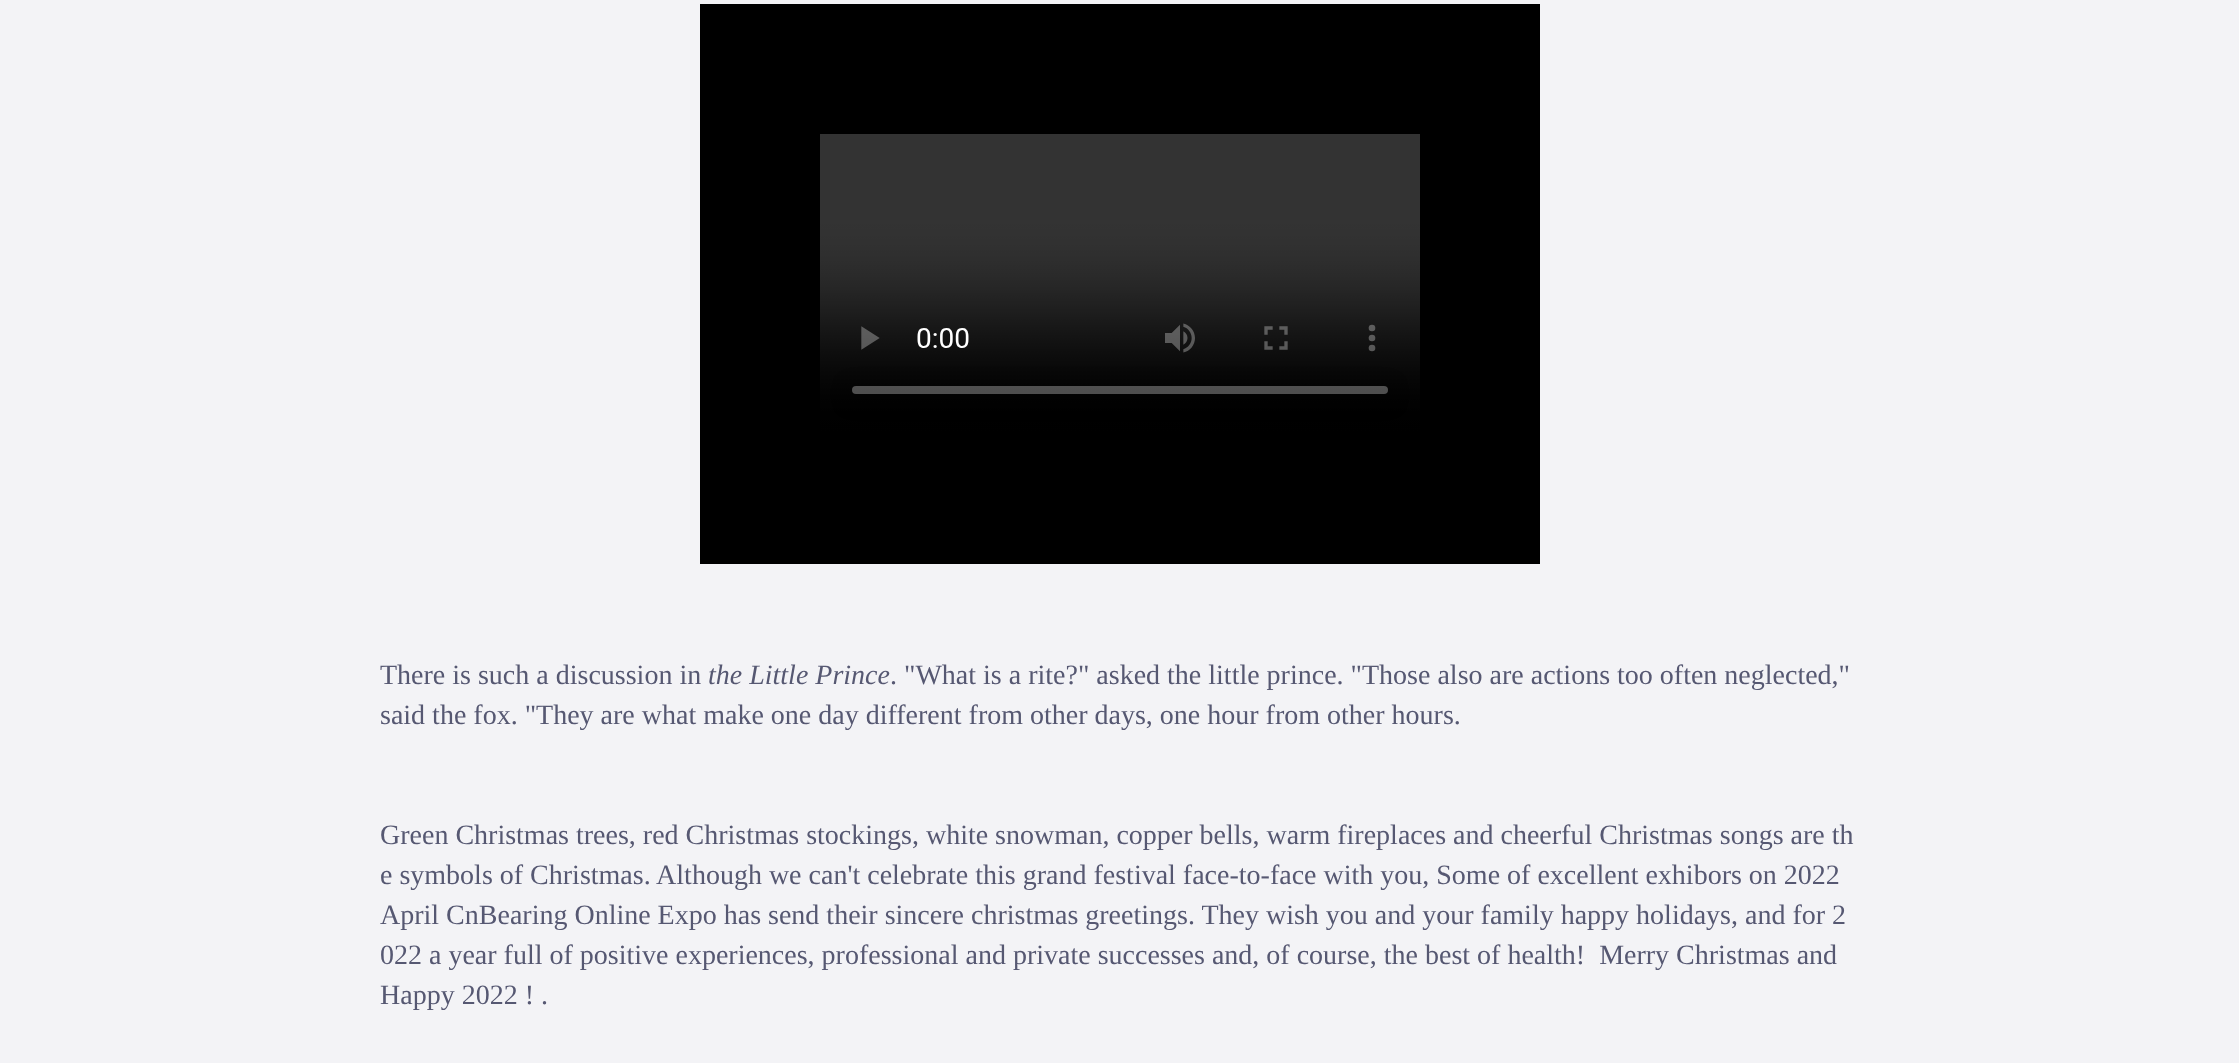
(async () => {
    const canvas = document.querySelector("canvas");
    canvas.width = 2239;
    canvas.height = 1063;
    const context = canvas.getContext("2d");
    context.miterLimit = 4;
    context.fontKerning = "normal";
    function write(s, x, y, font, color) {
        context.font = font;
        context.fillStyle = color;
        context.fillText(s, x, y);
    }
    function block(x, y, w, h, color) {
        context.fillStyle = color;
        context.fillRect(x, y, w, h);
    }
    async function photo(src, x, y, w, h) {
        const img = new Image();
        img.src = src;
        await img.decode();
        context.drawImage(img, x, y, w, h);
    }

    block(0, 0, 2239, 1063, "rgb(243, 243, 246)");
    await photo("media/1.png", 700, 4, 840, 560);
    write("There is such a discussion in", 380, 684, "28px Liberation Serif", "rgb(86, 88, 114)");
    write("the Little Prince", 708, 684, "italic 28px Liberation Serif", "rgb(86, 88, 114)");
    write(". \"What is a rite?\" asked the little prince. \"Those also are actions too often neglected,\"", 890, 684, "28px Liberation Serif", "rgb(86, 88, 114)");
    write("said the fox. \"They are what make one day different from other days, one hour from other hours.", 380, 724, "28px Liberation Serif", "rgb(86, 88, 114)");
    write("Green Christmas trees, red Christmas stockings, white snowman, copper bells, warm fireplaces and cheerful Christmas songs are th", 380, 844, "28px Liberation Serif", "rgb(86, 88, 114)");
    write("e symbols of Christmas. Although we can't celebrate this grand festival face-to-face with you, Some of excellent exhibors on 2022", 380, 884, "28px Liberation Serif", "rgb(86, 88, 114)");
    write("April CnBearing Online Expo has send their sincere christmas greetings. They wish you and your family happy holidays, and for 2", 380, 924, "28px Liberation Serif", "rgb(86, 88, 114)");
    write("022 a year full of positive experiences, professional and private successes and, of course, the best of health!  Merry Christmas and", 380, 964, "28px Liberation Serif", "rgb(86, 88, 114)");
    write("Happy 2022 ! .", 380, 1004, "28px Liberation Serif", "rgb(86, 88, 114)");
})();
